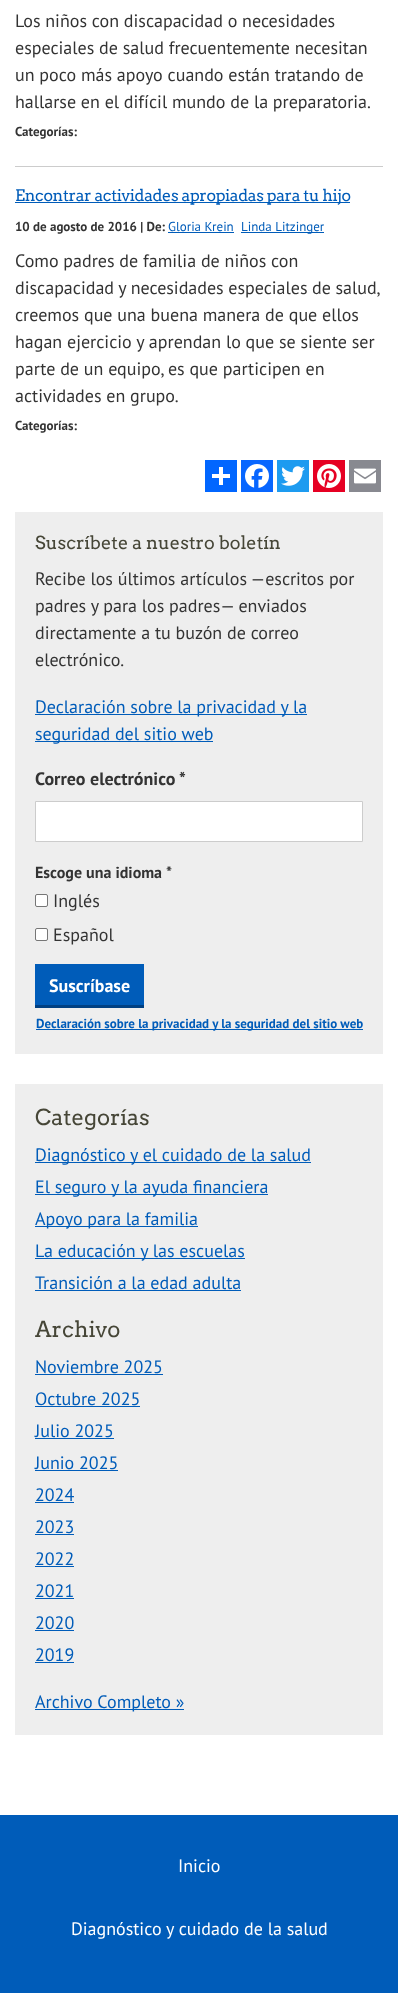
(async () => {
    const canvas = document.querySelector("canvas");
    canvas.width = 398;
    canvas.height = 1993;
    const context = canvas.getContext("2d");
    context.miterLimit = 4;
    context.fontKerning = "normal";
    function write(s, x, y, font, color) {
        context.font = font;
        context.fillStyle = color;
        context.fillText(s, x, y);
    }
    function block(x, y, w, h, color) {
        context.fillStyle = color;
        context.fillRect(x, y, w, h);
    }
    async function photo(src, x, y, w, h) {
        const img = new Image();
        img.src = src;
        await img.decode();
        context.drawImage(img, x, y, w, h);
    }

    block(0, 0, 398, 1993, "rgb(255, 255, 255)");
    write("Los niños con discapacidad o necesidades", 15, 27, "18px PT Sans", "rgb(51, 51, 51)");
    write("especiales de salud frecuentemente necesitan", 15, 54, "18px PT Sans", "rgb(51, 51, 51)");
    write("un poco más apoyo cuando están tratando de", 15, 81, "18px PT Sans", "rgb(51, 51, 51)");
    write("hallarse en el difícil mundo de la preparatoria.", 15, 108, "18px PT Sans", "rgb(51, 51, 51)");
    write("Categorías:", 15, 136, "bold 13px PT Sans", "rgb(51, 51, 51)");
    block(15, 166, 368, 1, "rgb(204, 204, 204)");
    block(15, 202, 335, 1, "rgb(0, 92, 185)");
    context.letterSpacing = "-0.35px";
    write("Encontrar actividades apropiadas para tu hijo", 15, 201, "16px Arvo", "rgb(0, 92, 185)");
    context.letterSpacing = "0px";
    write("10 de agosto de 2016 | De:", 15, 231, "bold 13px PT Sans", "rgb(51, 51, 51)");
    write("Gloria Krein", 168, 231, "13px PT Sans", "rgb(0, 92, 185)");
    block(168, 232, 66, 1, "rgb(0, 92, 185)");
    block(241, 232, 83, 1, "rgb(0, 92, 185)");
    write("Linda Litzinger", 241, 231, "13px PT Sans", "rgb(0, 92, 185)");
    write("Como padres de familia de niños con", 15, 267, "18px PT Sans", "rgb(51, 51, 51)");
    context.wordSpacing = "-0.25px";
    write("discapacidad y necesidades especiales de salud,", 15, 294, "18px PT Sans", "rgb(51, 51, 51)");
    context.wordSpacing = "0px";
    write("creemos que una buena manera de que ellos", 15, 321, "18px PT Sans", "rgb(51, 51, 51)");
    write("hagan ejercicio y aprendan lo que se siente ser", 15, 348, "18px PT Sans", "rgb(51, 51, 51)");
    write("parte de un equipo, es que participen en", 15, 375, "18px PT Sans", "rgb(51, 51, 51)");
    write("actividades en grupo.", 15, 402, "18px PT Sans", "rgb(51, 51, 51)");
    write("Categorías:", 15, 430, "bold 13px PT Sans", "rgb(51, 51, 51)");
    block(205, 460, 32, 32, "rgb(1, 102, 255)");
    block(219, 467, 4, 18, "rgb(255, 255, 255)");
    block(212, 474, 18, 4, "rgb(255, 255, 255)");
    block(241, 460, 32, 32, "rgb(8, 102, 255)");
    await photo("media/1.png", 245, 464, 24, 24);
    block(277, 460, 32, 32, "rgb(29, 155, 240)");
    await photo("media/2.png", 281, 466, 24, 20);
    block(313, 460, 32, 32, "rgb(230, 0, 35)");
    await photo("media/3.png", 317, 464, 24, 24);
    block(349, 460, 32, 32, "rgb(136, 137, 144)");
    await photo("media/4.png", 354, 468, 22, 16);
    block(15, 512, 368, 542, "rgb(238, 238, 238)");
    write("Suscríbete a nuestro boletín", 35, 549, "18px Arvo", "rgb(70, 70, 55)");
    write("Recibe los últimos artículos —escritos por", 35, 585, "18px PT Sans", "rgb(51, 51, 51)");
    write("padres y para los padres— enviados", 35, 612, "18px PT Sans", "rgb(51, 51, 51)");
    write("directamente a tu buzón de correo", 35, 639, "18px PT Sans", "rgb(51, 51, 51)");
    write("electrónico.", 35, 666, "18px PT Sans", "rgb(51, 51, 51)");
    block(35, 714, 272, 1, "rgb(0, 92, 185)");
    write("Declaración sobre la privacidad y la", 35, 713, "18px PT Sans", "rgb(0, 92, 185)");
    block(35, 741, 178, 1, "rgb(0, 92, 185)");
    write("seguridad del sitio web", 35, 740, "18px PT Sans", "rgb(0, 92, 185)");
    write("Correo electrónico", 35, 785, "bold 18px PT Sans", "rgb(51, 51, 51)");
    write("*", 179, 785, "bold 18px PT Sans", "rgb(51, 51, 51)");
    context.fillStyle = "rgb(255, 255, 255)";
    context.beginPath();
    context.rect(35.5, 801.5, 327, 40);
    context.fill();
    context.strokeStyle = "rgb(204, 204, 204)";
    context.stroke();
    write("Escoge una idioma", 35, 878, "bold 16px PT Sans", "rgb(51, 51, 51)");
    write("*", 166, 878, "bold 16px PT Sans", "rgb(51, 51, 51)");
    context.fillStyle = "rgb(255, 255, 255)";
    context.beginPath();
    context.roundRect(35.5, 894.5, 12, 12, 1.5);
    context.fill();
    context.strokeStyle = "rgb(118, 118, 118)";
    context.stroke();
    write("Inglés", 53, 907, "18px PT Sans", "rgb(51, 51, 51)");
    context.fillStyle = "rgb(255, 255, 255)";
    context.beginPath();
    context.roundRect(35.5, 928.5, 12, 12, 1.5);
    context.fill();
    context.stroke();
    write("Español", 53, 941, "18px PT Sans", "rgb(51, 51, 51)");
    block(35, 964, 109, 41, "rgb(0, 92, 185)");
    block(35, 1005, 109, 3, "rgb(0, 64, 130)");
    write("Suscríbase", 49, 992, "bold 18px PT Sans", "rgb(255, 255, 255)");
    block(36, 1029, 327, 1, "rgb(0, 92, 185)");
    write("Declaración sobre la privacidad y la seguridad del sitio web", 36, 1028, "bold 13px PT Sans", "rgb(0, 92, 185)");
    block(15, 1084, 368, 651, "rgb(238, 238, 238)");
    write("Categorías", 35, 1125, "22px Arvo", "rgb(70, 70, 55)");
    block(35, 1162, 276, 1, "rgb(0, 92, 185)");
    write("Diagnóstico y el cuidado de la salud", 35, 1161, "18px PT Sans", "rgb(0, 92, 185)");
    block(35, 1194, 233, 1, "rgb(0, 92, 185)");
    write("El seguro y la ayuda financiera", 35, 1193, "18px PT Sans", "rgb(0, 92, 185)");
    block(35, 1226, 163, 1, "rgb(0, 92, 185)");
    write("Apoyo para la familia", 35, 1225, "18px PT Sans", "rgb(0, 92, 185)");
    block(35, 1258, 210, 1, "rgb(0, 92, 185)");
    write("La educación y las escuelas", 35, 1257, "18px PT Sans", "rgb(0, 92, 185)");
    write("Transición a la edad adulta", 35, 1289, "18px PT Sans", "rgb(0, 92, 185)");
    block(35, 1290, 206, 1, "rgb(0, 92, 185)");
    write("Archivo", 35, 1337, "22px Arvo", "rgb(70, 70, 55)");
    write("Noviembre 2025", 35, 1373, "18px PT Sans", "rgb(0, 92, 185)");
    block(35, 1374, 128, 1, "rgb(0, 92, 185)");
    write("Octubre 2025", 35, 1405, "18px PT Sans", "rgb(0, 92, 185)");
    block(35, 1406, 105, 1, "rgb(0, 92, 185)");
    write("Julio 2025", 35, 1437, "18px PT Sans", "rgb(0, 92, 185)");
    block(35, 1438, 79, 1, "rgb(0, 92, 185)");
    write("Junio 2025", 35, 1469, "18px PT Sans", "rgb(0, 92, 185)");
    block(35, 1470, 83, 1, "rgb(0, 92, 185)");
    write("2024", 35, 1501, "18px PT Sans", "rgb(0, 92, 185)");
    block(35, 1502, 39, 1, "rgb(0, 92, 185)");
    write("2023", 35, 1533, "18px PT Sans", "rgb(0, 92, 185)");
    block(35, 1534, 39, 1, "rgb(0, 92, 185)");
    write("2022", 35, 1565, "18px PT Sans", "rgb(0, 92, 185)");
    block(35, 1566, 39, 1, "rgb(0, 92, 185)");
    write("2021", 35, 1597, "18px PT Sans", "rgb(0, 92, 185)");
    block(35, 1598, 39, 1, "rgb(0, 92, 185)");
    write("2020", 35, 1629, "18px PT Sans", "rgb(0, 92, 185)");
    block(35, 1630, 39, 1, "rgb(0, 92, 185)");
    write("2019", 35, 1661, "18px PT Sans", "rgb(0, 92, 185)");
    block(35, 1662, 39, 1, "rgb(0, 92, 185)");
    block(35, 1709, 149, 1, "rgb(0, 92, 185)");
    write("Archivo Completo »", 35, 1708, "18px PT Sans", "rgb(0, 92, 185)");
    block(0, 1815, 398, 178, "rgb(0, 92, 185)");
    write("Inicio", 178, 1872, "18px PT Sans", "rgb(255, 255, 255)");
    write("Diagnóstico y cuidado de la salud", 71, 1935, "18px PT Sans", "rgb(255, 255, 255)");
})();
